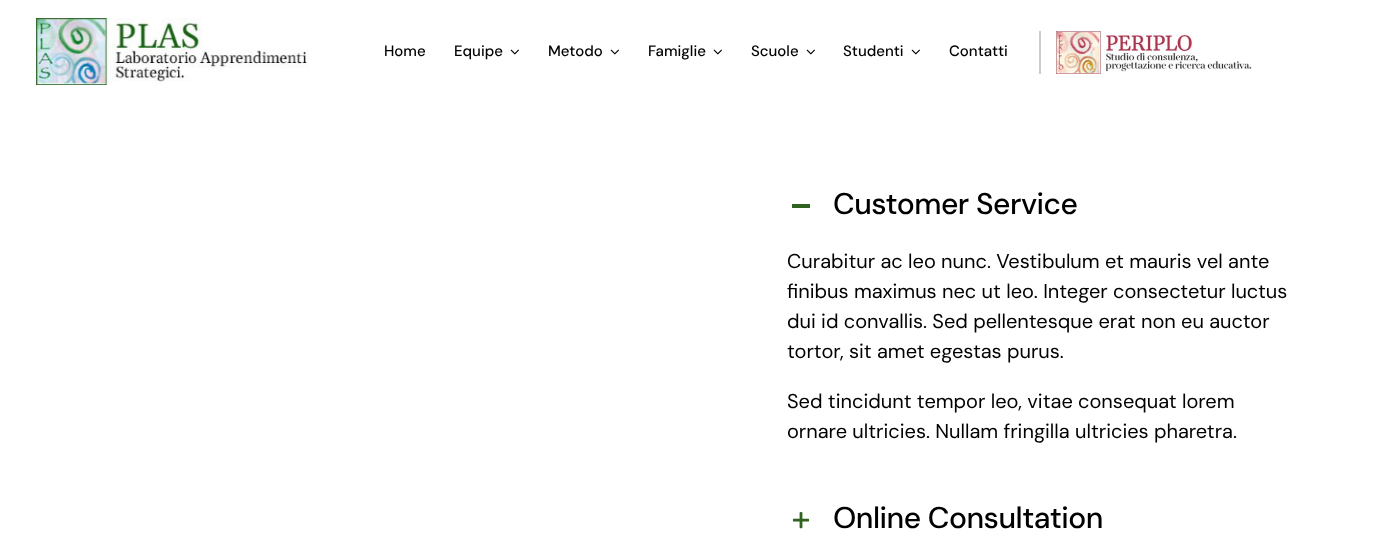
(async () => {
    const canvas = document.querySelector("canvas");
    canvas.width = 1392;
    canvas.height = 540;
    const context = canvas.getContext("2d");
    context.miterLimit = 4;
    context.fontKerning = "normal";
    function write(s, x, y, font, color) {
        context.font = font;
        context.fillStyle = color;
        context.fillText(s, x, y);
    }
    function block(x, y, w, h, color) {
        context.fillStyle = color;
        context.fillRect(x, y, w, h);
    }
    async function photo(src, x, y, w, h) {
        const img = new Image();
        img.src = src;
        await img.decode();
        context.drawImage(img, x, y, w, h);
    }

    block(0, 0, 1392, 540, "rgb(255, 255, 255)");
    await photo("media/1.png", 36, 18, 273, 67);
    write("Home", 384, 56, "500 15px DM Sans", "rgb(0, 0, 0)");
    write("Equipe", 454, 56, "500 15px DM Sans", "rgb(0, 0, 0)");
    await photo("media/2.png", 510, 49, 9, 6);
    write("Metodo", 548, 56, "500 15px DM Sans", "rgb(0, 0, 0)");
    await photo("media/2.png", 610, 49, 9, 6);
    write("Famiglie", 648, 56, "500 15px DM Sans", "rgb(0, 0, 0)");
    await photo("media/2.png", 713, 49, 9, 6);
    write("Scuole", 751, 56, "500 15px DM Sans", "rgb(0, 0, 0)");
    await photo("media/2.png", 806, 49, 9, 6);
    write("Studenti", 843, 56, "500 15px DM Sans", "rgb(0, 0, 0)");
    await photo("media/2.png", 911, 49, 9, 6);
    write("Contatti", 949, 56, "500 15px DM Sans", "rgb(0, 0, 0)");
    block(1039, 31, 2, 43, "rgb(204, 204, 204)");
    await photo("media/3.png", 1056, 31, 196, 43);
    block(792, 204, 18, 4, "rgb(48, 99, 32)");
    context.letterSpacing = "-0.5px";
    write("Customer Service", 833, 214, "500 30px DM Sans", "rgb(0, 0, 0)");
    context.letterSpacing = "0px";
    write("Curabitur ac leo nunc. Vestibulum et mauris vel ante", 787, 268, "20px DM Sans", "rgb(0, 0, 0)");
    write("finibus maximus nec ut leo. Integer consectetur luctus", 787, 298, "20px DM Sans", "rgb(0, 0, 0)");
    write("dui id convallis. Sed pellentesque erat non eu auctor", 787, 328, "20px DM Sans", "rgb(0, 0, 0)");
    write("tortor, sit amet egestas purus.", 787, 358, "20px DM Sans", "rgb(0, 0, 0)");
    write("Sed tincidunt tempor leo, vitae consequat lorem", 787, 408, "20px DM Sans", "rgb(0, 0, 0)");
    write("ornare ultricies. Nullam fringilla ultricies pharetra.", 787, 438, "20px DM Sans", "rgb(0, 0, 0)");
    await photo("media/4.png", 792, 512, 18, 17);
    context.letterSpacing = "-0.5px";
    write("Online Consultation", 833, 528, "500 30px DM Sans", "rgb(0, 0, 0)");
})();
